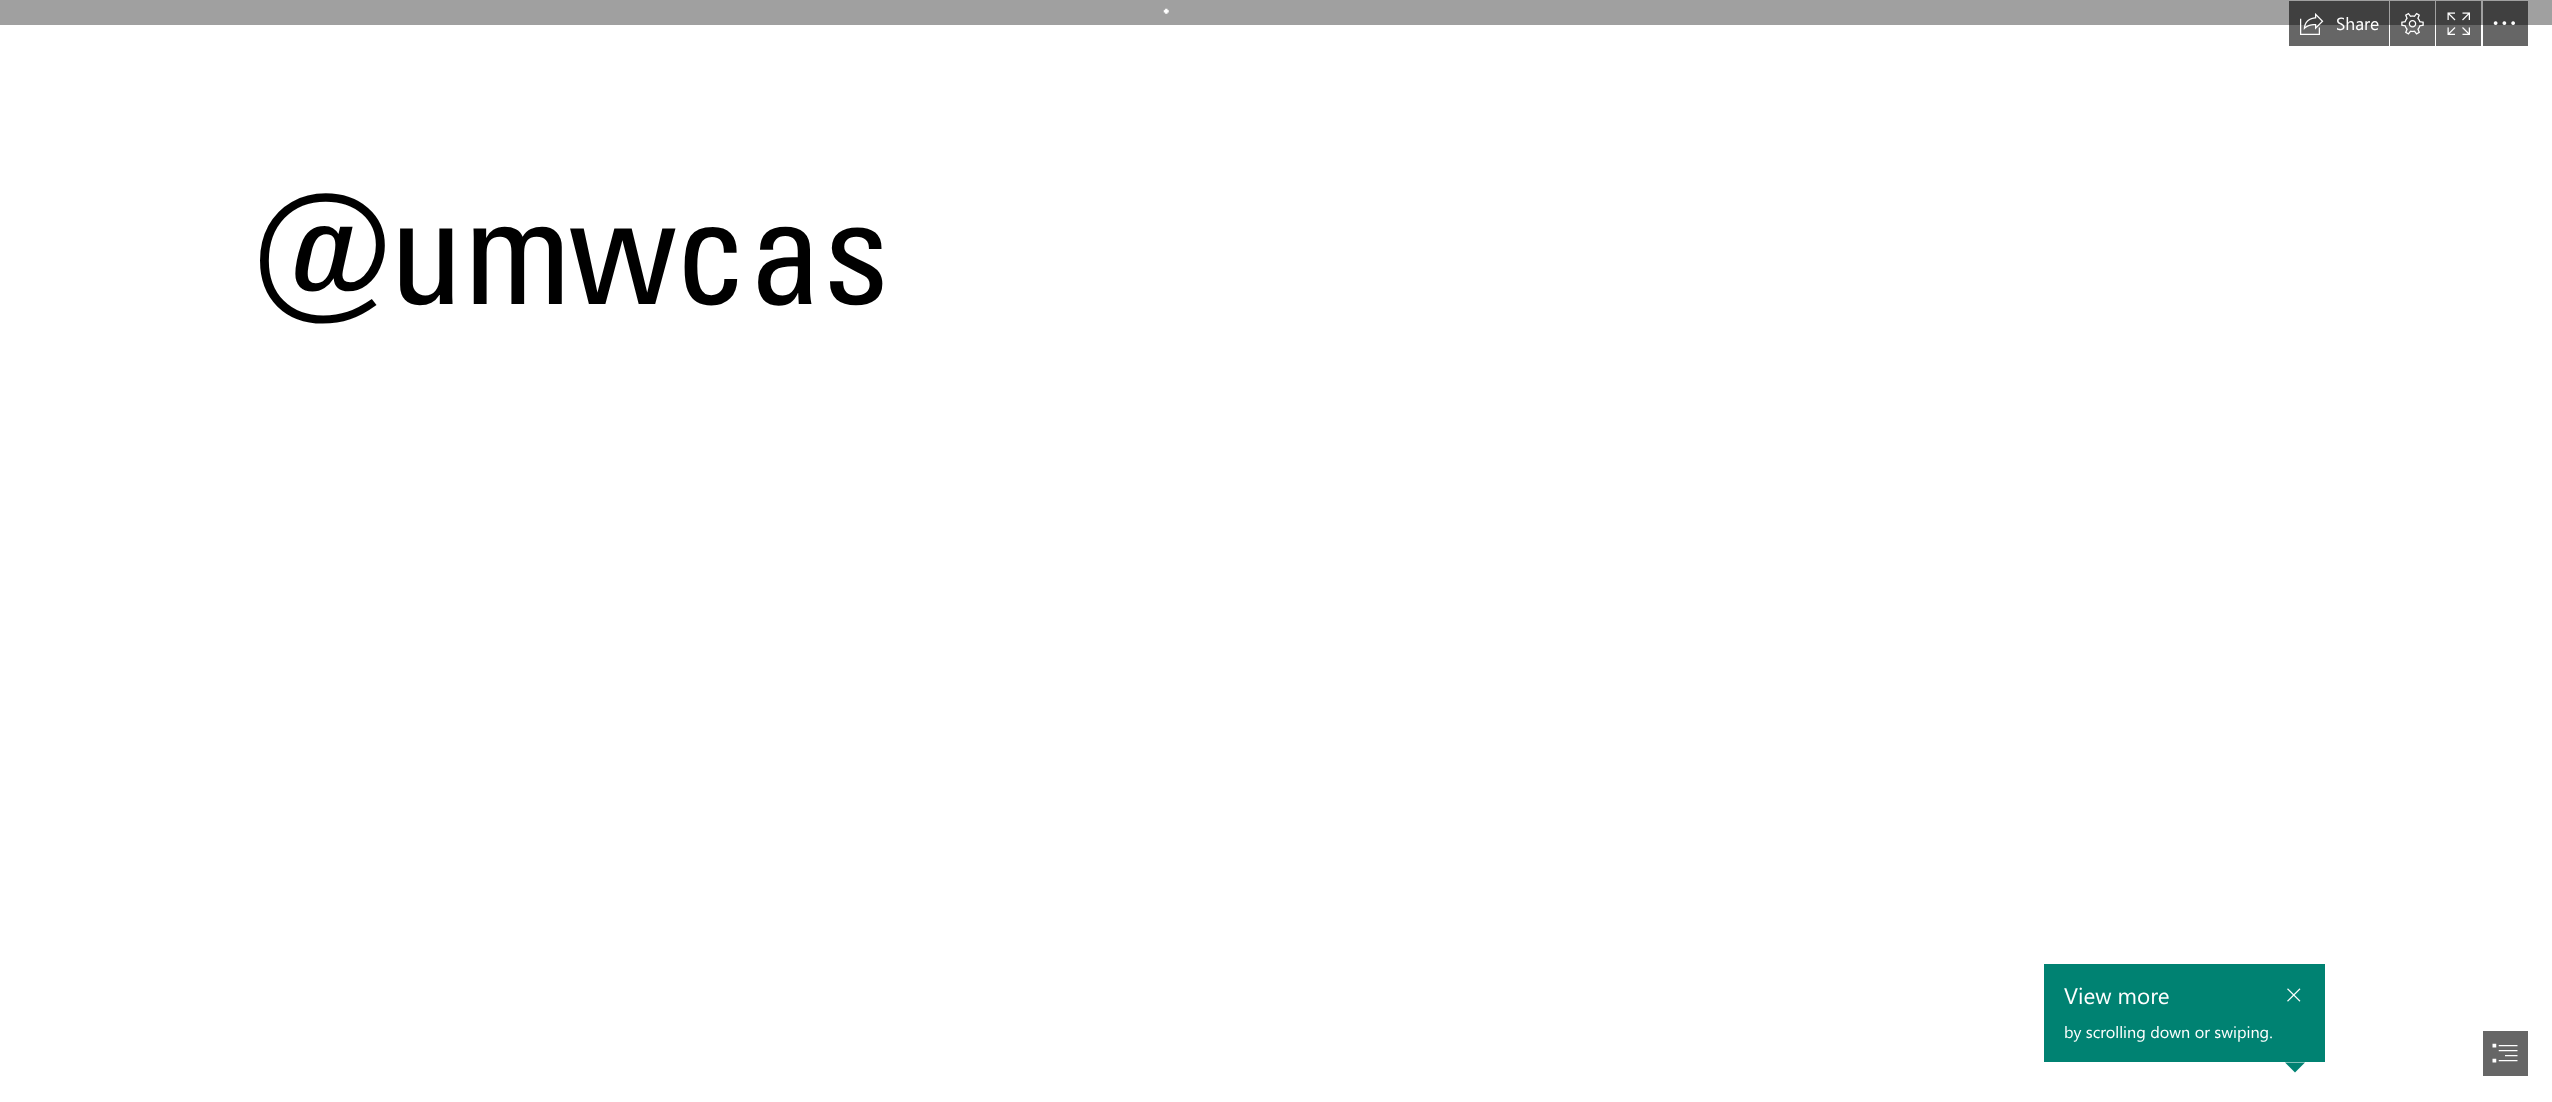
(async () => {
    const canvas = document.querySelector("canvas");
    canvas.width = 2552;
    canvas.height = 1102;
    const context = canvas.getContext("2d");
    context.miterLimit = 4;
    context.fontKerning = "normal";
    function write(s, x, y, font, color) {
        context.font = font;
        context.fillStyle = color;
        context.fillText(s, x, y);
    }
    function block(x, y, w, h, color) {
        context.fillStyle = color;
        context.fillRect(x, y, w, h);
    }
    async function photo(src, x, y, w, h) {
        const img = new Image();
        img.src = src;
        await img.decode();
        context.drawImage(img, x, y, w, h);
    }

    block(0, 0, 2552, 1102, "rgb(255, 255, 255)");
    block(0, 0, 2552, 25, "rgb(160, 160, 160)");
    block(2289, 1, 100, 24, "rgb(64, 64, 64)");
    block(2289, 25, 100, 21, "rgb(102, 102, 102)");
    await photo("media/1.png", 2300, 13, 24, 22);
    write("Share", 2336, 30, "17.5px Segoe UI", "rgb(255, 255, 255)");
    block(2390, 1, 45, 24, "rgb(64, 64, 64)");
    block(2390, 25, 45, 21, "rgb(102, 102, 102)");
    await photo("media/2.png", 2401, 12, 23, 23);
    block(2436, 1, 45, 24, "rgb(64, 64, 64)");
    block(2436, 25, 45, 21, "rgb(102, 102, 102)");
    await photo("media/3.png", 2447, 12, 23, 23);
    block(2483, 1, 45, 24, "rgb(64, 64, 64)");
    await photo("media/4.png", 2493, 21, 22, 4);
    await photo("media/5.png", 1163, 8, 6, 6);
    block(2483, 25, 45, 21, "rgb(102, 102, 102)");
    write("@umwcas", 256, 304, "149.5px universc", "rgb(0, 0, 0)");
    block(2044, 964, 281, 98, "rgb(0, 130, 114)");
    write("View more", 2064, 1004, "22.5px Segoe UI", "rgb(255, 255, 255)");
    write("by scrolling down or swiping.", 2064, 1038, "16.25px Segoe UI", "rgb(255, 255, 255)");
    await photo("media/6.png", 2287, 988, 14, 14);
    context.fillStyle = "rgb(0, 130, 114)";
    context.beginPath();
    context.moveTo(2285, 1062.5);
    context.lineTo(2305, 1062.5);
    context.lineTo(2295, 1072.5);
    context.closePath();
    context.fill();
    block(2483, 1031, 45, 45, "rgb(102, 102, 102)");
    await photo("media/7.png", 2492, 1043, 26, 20);
})();
